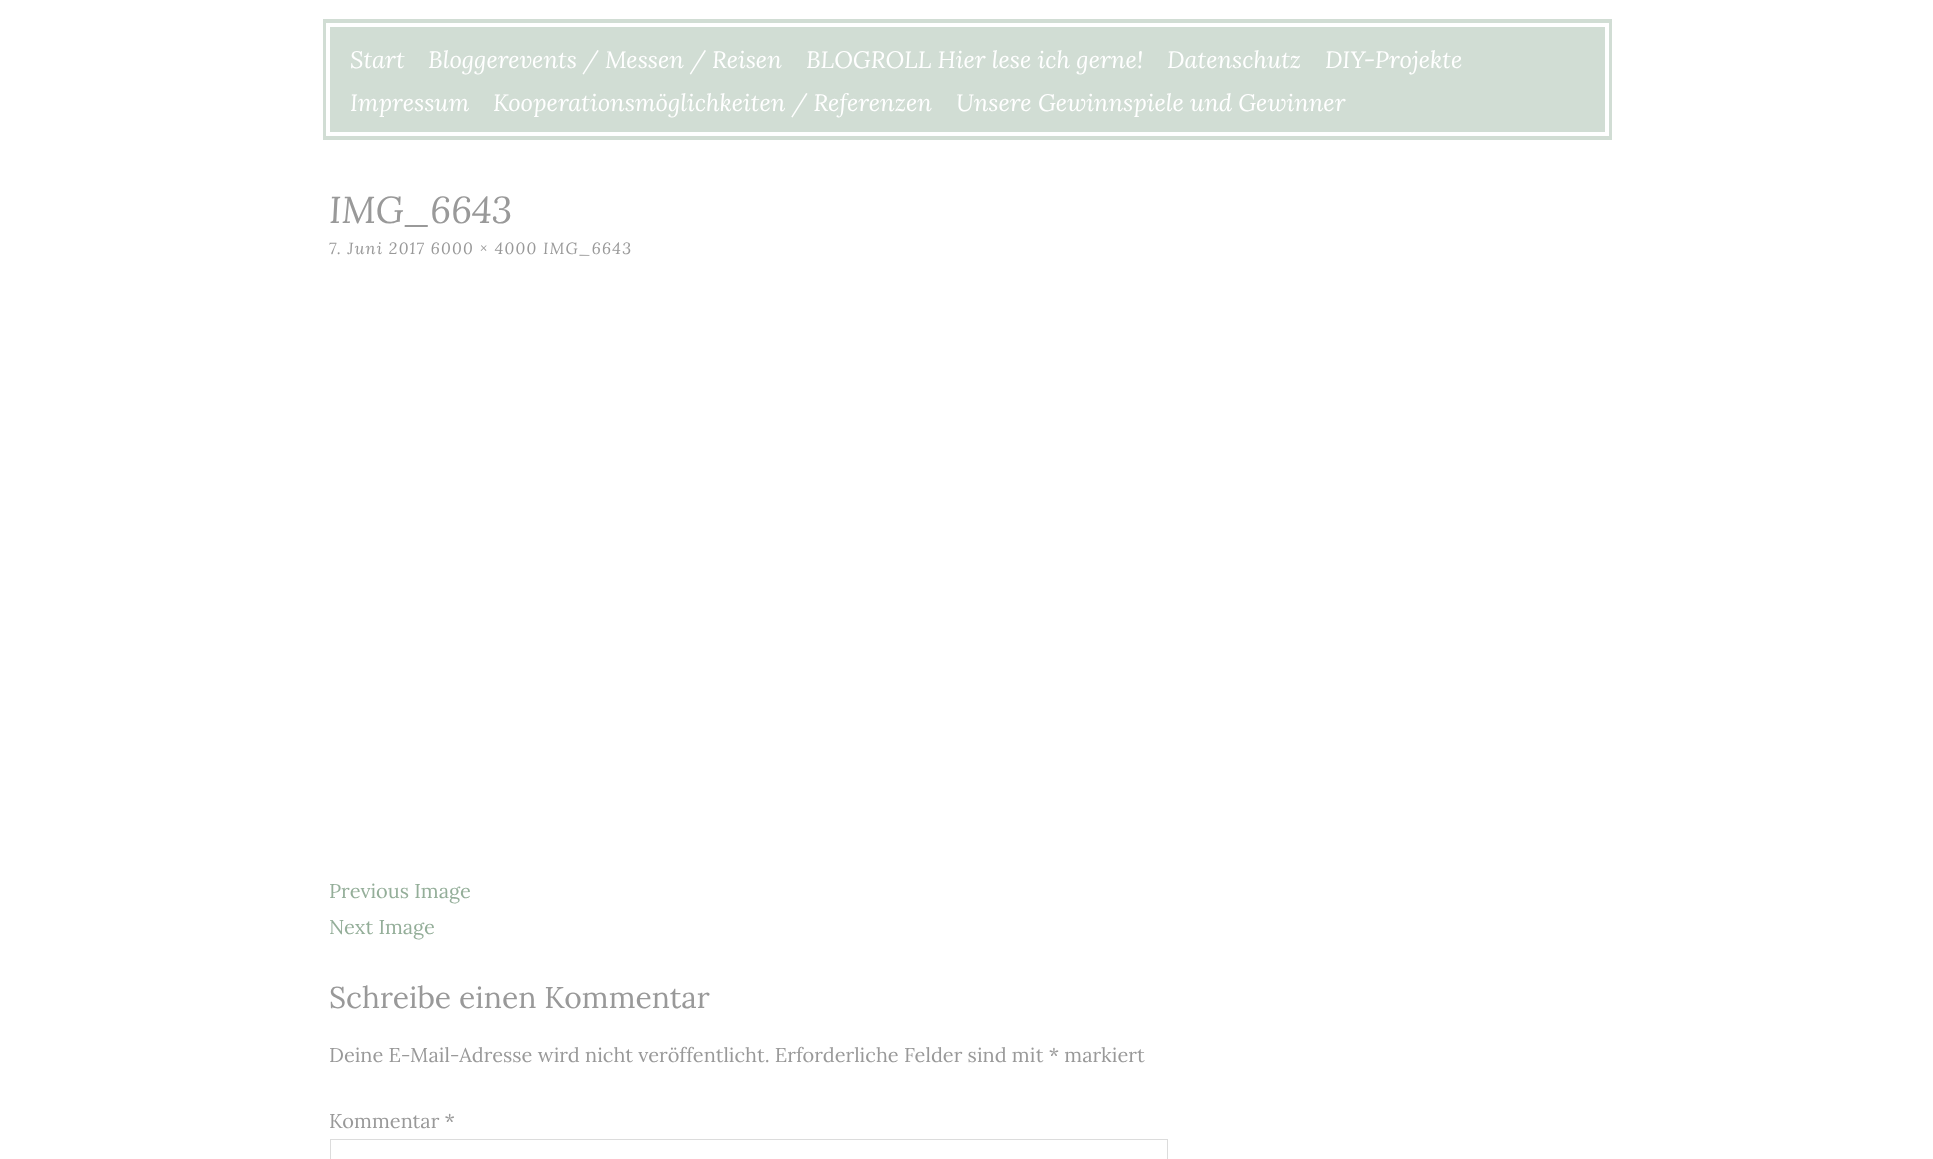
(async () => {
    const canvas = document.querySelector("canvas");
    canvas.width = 1933;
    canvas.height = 1159;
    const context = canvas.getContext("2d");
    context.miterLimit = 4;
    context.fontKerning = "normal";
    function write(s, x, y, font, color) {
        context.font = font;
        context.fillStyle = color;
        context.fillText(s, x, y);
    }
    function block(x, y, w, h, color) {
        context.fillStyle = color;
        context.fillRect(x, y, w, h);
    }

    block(0, 0, 1933, 1159, "rgb(255, 255, 255)");
    block(323, 19, 1289, 121, "rgb(209, 221, 212)");
    context.strokeStyle = "rgb(255, 255, 255)";
    context.lineWidth = 4;
    context.strokeRect(328, 25, 1279, 109);
    write("Start", 350, 68, "italic 23.75px Lora", "rgb(255, 255, 255)");
    write("Bloggerevents / Messen / Reisen", 428, 68, "italic 23.75px Lora", "rgb(255, 255, 255)");
    write("BLOGROLL Hier lese ich gerne!", 806, 68, "italic 23.75px Lora", "rgb(255, 255, 255)");
    write("Datenschutz", 1167, 68, "italic 23.75px Lora", "rgb(255, 255, 255)");
    write("DIY-Projekte", 1325, 68, "italic 23.75px Lora", "rgb(255, 255, 255)");
    write("Impressum", 350, 111, "italic 23.75px Lora", "rgb(255, 255, 255)");
    write("Kooperationsmöglichkeiten / Referenzen", 493, 111, "italic 23.75px Lora", "rgb(255, 255, 255)");
    write("Unsere Gewinnspiele und Gewinner", 956, 111, "italic 23.75px Lora", "rgb(255, 255, 255)");
    write("IMG_6643", 329, 223, "italic 37.5px Lora", "rgb(153, 153, 153)");
    context.letterSpacing = "1.25px";
    write("7. Juni 2017 6000 × 4000 IMG_6643", 329, 254, "italic 16.25px Lora", "rgb(153, 153, 153)");
    context.letterSpacing = "0px";
    write("Previous Image", 329, 898, "20px Lora", "rgb(148, 174, 153)");
    write("Next Image", 329, 934, "20px Lora", "rgb(148, 174, 153)");
    write("Schreibe einen Kommentar", 329, 1008, "30px Lora", "rgb(153, 153, 153)");
    write("Deine E-Mail-Adresse wird nicht veröffentlicht. Erforderliche Felder sind mit * markiert", 329, 1062, "20px Lora", "rgb(153, 153, 153)");
    write("Kommentar *", 329, 1128, "20px Lora", "rgb(153, 153, 153)");
    context.strokeStyle = "rgb(220, 220, 220)";
    context.lineWidth = 1;
    context.strokeRect(330.5, 1139.5, 837, 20);
})();
